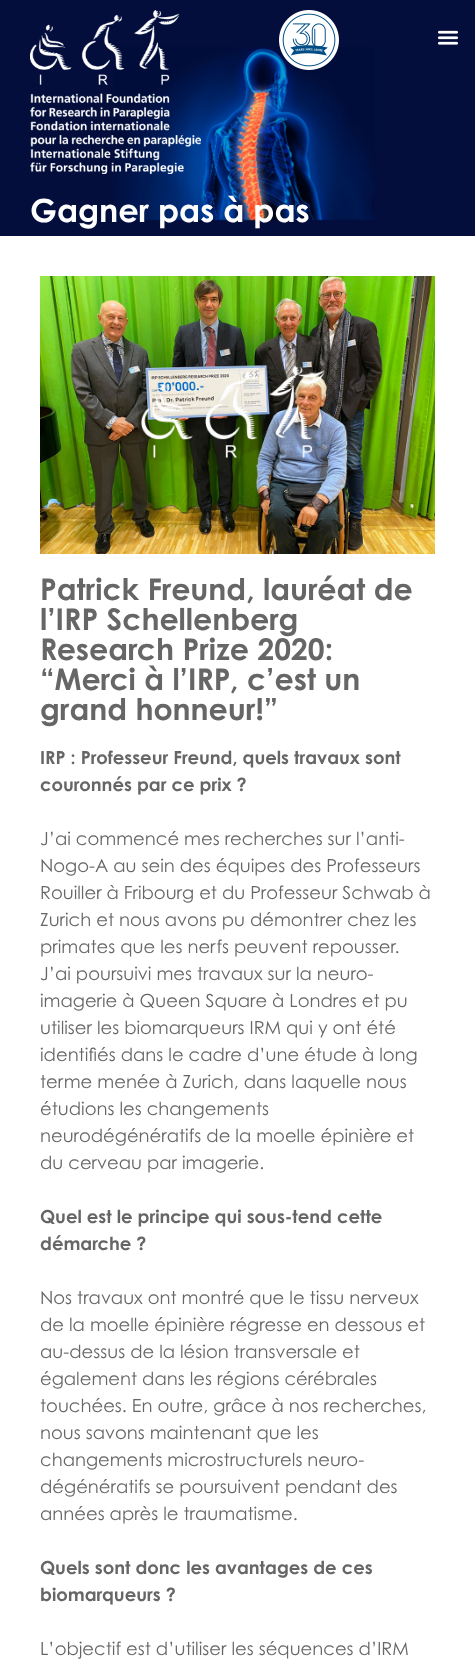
(async () => {
    const canvas = document.querySelector("canvas");
    canvas.width = 475;
    canvas.height = 1674;
    const context = canvas.getContext("2d");
    context.miterLimit = 4;
    context.fontKerning = "normal";
    function write(s, x, y, font, color) {
        context.font = font;
        context.fillStyle = color;
        context.fillText(s, x, y);
    }
    function block(x, y, w, h, color) {
        context.fillStyle = color;
        context.fillRect(x, y, w, h);
    }
    async function photo(src, x, y, w, h) {
        const img = new Image();
        img.src = src;
        await img.decode();
        context.drawImage(img, x, y, w, h);
    }

    block(0, 0, 475, 1674, "rgb(3, 14, 60)");
    await photo("media/1.png", 114, 47, 261, 174);
    await photo("media/2.png", 30, 10, 171, 164);
    await photo("media/3.png", 279, 10, 60, 60);
    await photo("media/4.png", 437, 30, 22, 15);
    write("Gagner pas à pas", 30, 222, "bold 32px Century Gothic", "rgb(255, 255, 255)");
    block(0, 236, 475, 1438, "rgb(255, 255, 255)");
    await photo("media/5.png", 40, 276, 395, 278);
    write("Patrick Freund, lauréat de", 40, 600, "bold 30px Century Gothic", "rgb(102, 102, 102)");
    write("l’IRP Schellenberg", 40, 630, "bold 30px Century Gothic", "rgb(102, 102, 102)");
    write("Research Prize 2020:", 40, 660, "bold 30px Century Gothic", "rgb(102, 102, 102)");
    write("“Merci à l’IRP, c’est un", 40, 690, "bold 30px Century Gothic", "rgb(102, 102, 102)");
    write("grand honneur!”", 40, 720, "bold 30px Century Gothic", "rgb(102, 102, 102)");
    write("IRP : Professeur Freund, quels travaux sont", 40, 764, "bold 18px Century Gothic", "rgb(102, 102, 102)");
    write("couronnés par ce prix ?", 40, 791, "bold 18px Century Gothic", "rgb(102, 102, 102)");
    write("J’ai commencé mes recherches sur l’anti-", 40, 845, "18px Century Gothic", "rgb(102, 102, 102)");
    write("Nogo-A au sein des équipes des Professeurs", 40, 872, "18px Century Gothic", "rgb(102, 102, 102)");
    write("Rouiller à Fribourg et du Professeur Schwab à", 40, 899, "18px Century Gothic", "rgb(102, 102, 102)");
    write("Zurich et nous avons pu démontrer chez les", 40, 926, "18px Century Gothic", "rgb(102, 102, 102)");
    write("primates que les nerfs peuvent repousser.", 40, 953, "18px Century Gothic", "rgb(102, 102, 102)");
    write("J’ai poursuivi mes travaux sur la neuro-", 40, 980, "18px Century Gothic", "rgb(102, 102, 102)");
    write("imagerie à Queen Square à Londres et pu", 40, 1007, "18px Century Gothic", "rgb(102, 102, 102)");
    write("utiliser les biomarqueurs IRM qui y ont été", 40, 1034, "18px Century Gothic", "rgb(102, 102, 102)");
    write("identifiés dans le cadre d’une étude à long", 40, 1061, "18px Century Gothic", "rgb(102, 102, 102)");
    write("terme menée à Zurich, dans laquelle nous", 40, 1088, "18px Century Gothic", "rgb(102, 102, 102)");
    write("étudions les changements", 40, 1115, "18px Century Gothic", "rgb(102, 102, 102)");
    write("neurodégénératifs de la moelle épinière et", 40, 1142, "18px Century Gothic", "rgb(102, 102, 102)");
    write("du cerveau par imagerie.", 40, 1169, "18px Century Gothic", "rgb(102, 102, 102)");
    write("Quel est le principe qui sous-tend cette", 40, 1223, "bold 18px Century Gothic", "rgb(102, 102, 102)");
    write("démarche ?", 40, 1250, "bold 18px Century Gothic", "rgb(102, 102, 102)");
    write("Nos travaux ont montré que le tissu nerveux", 40, 1304, "18px Century Gothic", "rgb(102, 102, 102)");
    write("de la moelle épinière régresse en dessous et", 40, 1331, "18px Century Gothic", "rgb(102, 102, 102)");
    write("au-dessus de la lésion transversale et", 40, 1358, "18px Century Gothic", "rgb(102, 102, 102)");
    write("également dans les régions cérébrales", 40, 1385, "18px Century Gothic", "rgb(102, 102, 102)");
    write("touchées. En outre, grâce à nos recherches,", 40, 1412, "18px Century Gothic", "rgb(102, 102, 102)");
    write("nous savons maintenant que les", 40, 1439, "18px Century Gothic", "rgb(102, 102, 102)");
    write("changements microstructurels neuro-", 40, 1466, "18px Century Gothic", "rgb(102, 102, 102)");
    write("dégénératifs se poursuivent pendant des", 40, 1493, "18px Century Gothic", "rgb(102, 102, 102)");
    write("années après le traumatisme.", 40, 1520, "18px Century Gothic", "rgb(102, 102, 102)");
    write("Quels sont donc les avantages de ces", 40, 1574, "bold 18px Century Gothic", "rgb(102, 102, 102)");
    write("biomarqueurs ?", 40, 1601, "bold 18px Century Gothic", "rgb(102, 102, 102)");
    write("L’objectif est d’utiliser les séquences d’IRM", 40, 1655, "18px Century Gothic", "rgb(102, 102, 102)");
})();
